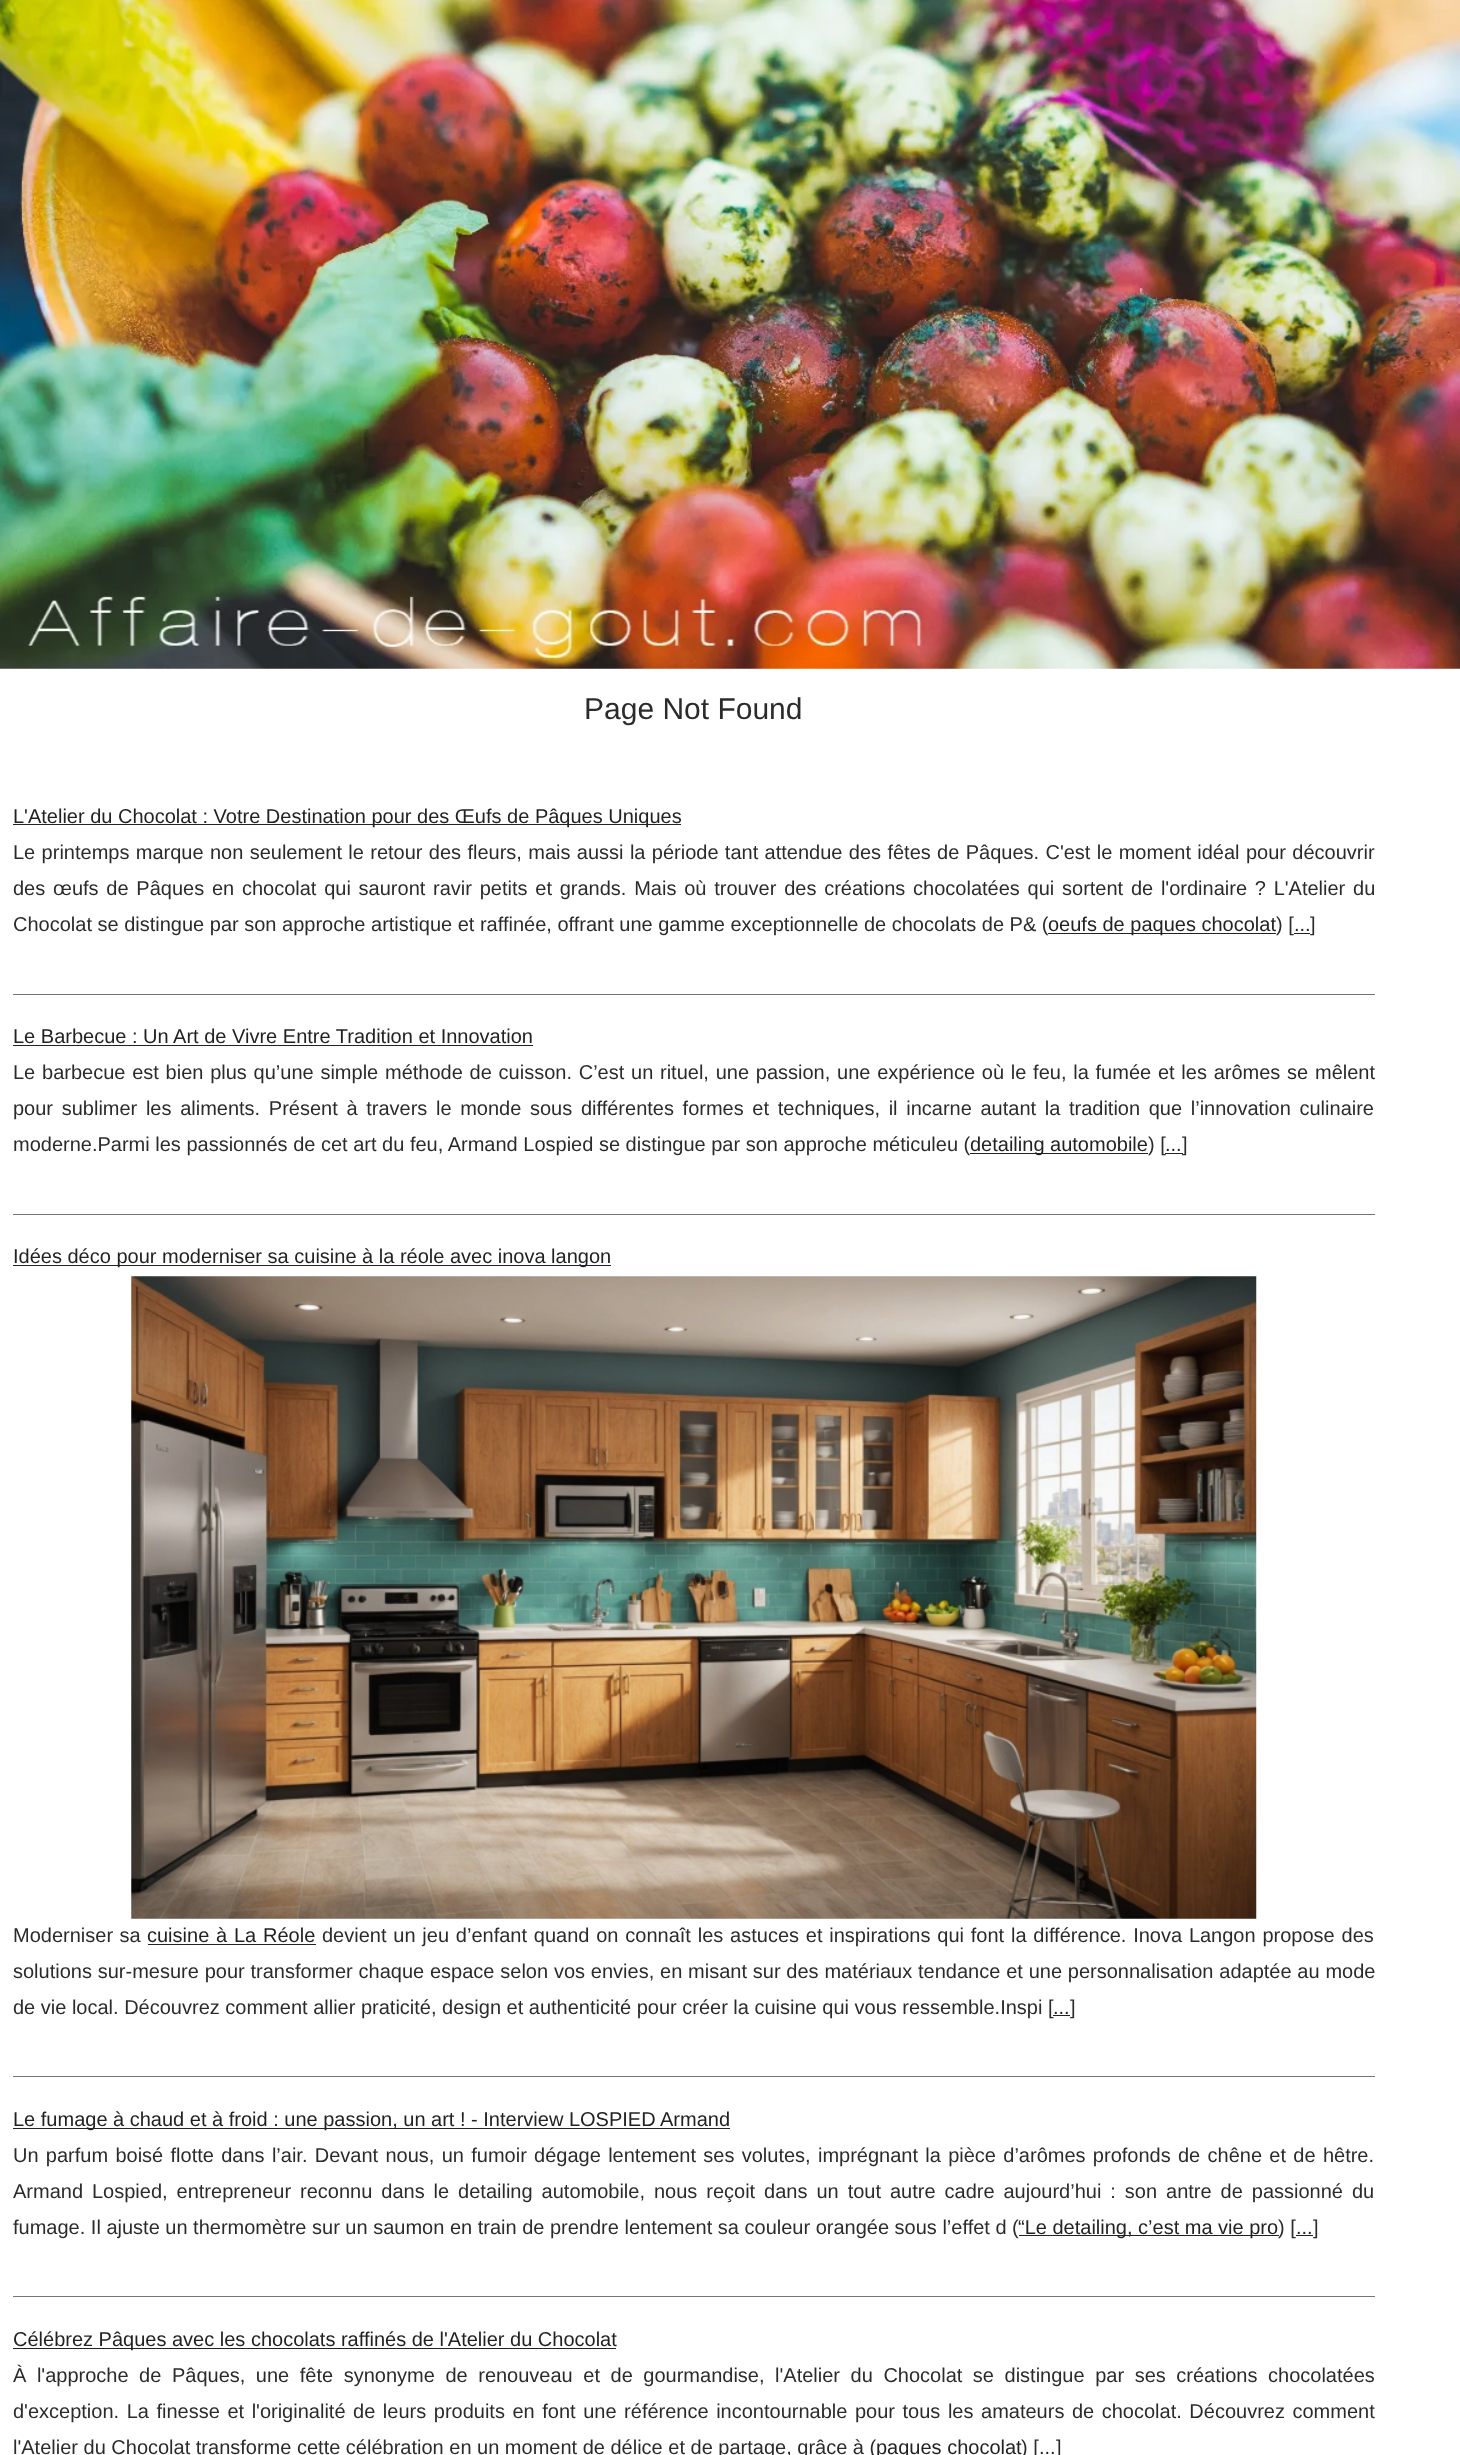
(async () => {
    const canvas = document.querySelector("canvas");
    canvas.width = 1460;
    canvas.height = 2455;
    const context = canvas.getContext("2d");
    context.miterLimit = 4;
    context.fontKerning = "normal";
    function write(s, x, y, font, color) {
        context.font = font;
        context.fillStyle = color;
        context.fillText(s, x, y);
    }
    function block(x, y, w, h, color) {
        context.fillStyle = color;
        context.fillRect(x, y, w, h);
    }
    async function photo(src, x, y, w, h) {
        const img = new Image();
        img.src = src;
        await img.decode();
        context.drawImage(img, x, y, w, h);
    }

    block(0, 0, 1460, 2455, "rgb(255, 255, 255)");
    await photo("media/1.png", 0, 0, 1460, 669);
    write("Page Not Found", 584, 719, "30px Liberation Sans", "rgb(43, 43, 43)");
    block(13, 824, 668, 1, "rgb(34, 34, 34)");
    write("L'Atelier du Chocolat : Votre Destination pour des Œufs de Pâques Uniques", 13, 823, "20px Liberation Sans", "rgb(34, 34, 34)");
    context.wordSpacing = "0.8px";
    write("Le printemps marque non seulement le retour des fleurs, mais aussi la période tant attendue des fêtes de Pâques. C'est le moment idéal pour découvrir", 13, 859, "20px Liberation Sans", "rgb(43, 43, 43)");
    context.wordSpacing = "2.2px";
    write("des œufs de Pâques en chocolat qui sauront ravir petits et grands. Mais où trouver des créations chocolatées qui sortent de l'ordinaire ? L'Atelier du", 13, 895, "20px Liberation Sans", "rgb(43, 43, 43)");
    context.wordSpacing = "0px";
    write("Chocolat se distingue par son approche artistique et raffinée, offrant une gamme exceptionnelle de chocolats de P& (", 13, 931, "20px Liberation Sans", "rgb(43, 43, 43)");
    block(1048, 933, 228, 1, "rgb(34, 34, 34)");
    write("oeufs de paques chocolat", 1048, 931, "20px Liberation Sans", "rgb(34, 34, 34)");
    write(") [", 1276, 931, "20px Liberation Sans", "rgb(43, 43, 43)");
    write("...", 1294, 931, "20px Liberation Sans", "rgb(34, 34, 34)");
    block(1294, 933, 16, 1, "rgb(34, 34, 34)");
    write("]", 1310, 931, "20px Liberation Sans", "rgb(43, 43, 43)");
    block(13, 994, 1362, 1, "rgb(117, 117, 117)");
    write("Le Barbecue : Un Art de Vivre Entre Tradition et Innovation", 13, 1043, "20px Liberation Sans", "rgb(34, 34, 34)");
    block(13, 1045, 520, 1, "rgb(34, 34, 34)");
    context.wordSpacing = "1.2px";
    write("Le barbecue est bien plus qu’une simple méthode de cuisson. C’est un rituel, une passion, une expérience où le feu, la fumée et les arômes se mêlent", 13, 1079, "20px Liberation Sans", "rgb(43, 43, 43)");
    context.wordSpacing = "3.1px";
    write("pour sublimer les aliments. Présent à travers le monde sous différentes formes et techniques, il incarne autant la tradition que l’innovation culinaire", 13, 1115, "20px Liberation Sans", "rgb(43, 43, 43)");
    context.wordSpacing = "0px";
    write("moderne.Parmi les passionnés de cet art du feu, Armand Lospied se distingue par son approche méticuleu (", 13, 1151, "20px Liberation Sans", "rgb(43, 43, 43)");
    block(970, 1153, 178, 1, "rgb(34, 34, 34)");
    write("detailing automobile", 970, 1151, "20px Liberation Sans", "rgb(34, 34, 34)");
    write(") [", 1148, 1151, "20px Liberation Sans", "rgb(43, 43, 43)");
    write("...", 1165, 1151, "20px Liberation Sans", "rgb(34, 34, 34)");
    block(1165, 1153, 18, 1, "rgb(34, 34, 34)");
    write("]", 1182, 1151, "20px Liberation Sans", "rgb(43, 43, 43)");
    block(13, 1214, 1362, 1, "rgb(117, 117, 117)");
    block(13, 1265, 598, 1, "rgb(34, 34, 34)");
    write("Idées déco pour moderniser sa cuisine à la réole avec inova langon", 13, 1263, "20px Liberation Sans", "rgb(34, 34, 34)");
    await photo("media/2.png", 131, 1276, 1126, 643);
    context.wordSpacing = "1px";
    write("Moderniser sa", 13, 1942, "20px Liberation Sans", "rgb(43, 43, 43)");
    context.wordSpacing = "1.25px";
    write("cuisine à La Réole", 147, 1942, "20px Liberation Sans", "rgb(34, 34, 34)");
    block(148, 1944, 168, 1, "rgb(34, 34, 34)");
    write("devient un jeu d’enfant quand on connaît les astuces et inspirations qui font la différence. Inova Langon propose des", 322, 1942, "20px Liberation Sans", "rgb(43, 43, 43)");
    context.wordSpacing = "0.25px";
    write("solutions sur-mesure pour transformer chaque espace selon vos envies, en misant sur des matériaux tendance et une personnalisation adaptée au mode", 13, 1978, "20px Liberation Sans", "rgb(43, 43, 43)");
    context.wordSpacing = "0px";
    write("de vie local. Découvrez comment allier praticité, design et authenticité pour créer la cuisine qui vous ressemble.Inspi [", 13, 2014, "20px Liberation Sans", "rgb(43, 43, 43)");
    write("...", 1053, 2014, "20px Liberation Sans", "rgb(34, 34, 34)");
    block(1053, 2015, 17, 1, "rgb(34, 34, 34)");
    write("]", 1070, 2014, "20px Liberation Sans", "rgb(43, 43, 43)");
    block(13, 2076, 1362, 1, "rgb(117, 117, 117)");
    block(13, 2128, 717, 1, "rgb(34, 34, 34)");
    write("Le fumage à chaud et à froid : une passion, un art ! - Interview LOSPIED Armand", 13, 2126, "20px Liberation Sans", "rgb(34, 34, 34)");
    context.wordSpacing = "1.75px";
    write("Un parfum boisé flotte dans l’air. Devant nous, un fumoir dégage lentement ses volutes, imprégnant la pièce d’arômes profonds de chêne et de hêtre.", 13, 2162, "20px Liberation Sans", "rgb(43, 43, 43)");
    context.wordSpacing = "3.4px";
    write("Armand Lospied, entrepreneur reconnu dans le detailing automobile, nous reçoit dans un tout autre cadre aujourd’hui : son antre de passionné du", 13, 2198, "20px Liberation Sans", "rgb(43, 43, 43)");
    context.wordSpacing = "0px";
    write("fumage. Il ajuste un thermomètre sur un saumon en train de prendre lentement sa couleur orangée sous l’effet d (", 13, 2234, "20px Liberation Sans", "rgb(43, 43, 43)");
    block(1019, 2235, 260, 1, "rgb(34, 34, 34)");
    write("“Le detailing, c’est ma vie pro", 1018, 2234, "20px Liberation Sans", "rgb(34, 34, 34)");
    write(") [", 1278, 2234, "20px Liberation Sans", "rgb(43, 43, 43)");
    write("...", 1296, 2234, "20px Liberation Sans", "rgb(34, 34, 34)");
    block(1296, 2235, 17, 1, "rgb(34, 34, 34)");
    write("]", 1313, 2234, "20px Liberation Sans", "rgb(43, 43, 43)");
    block(13, 2296, 1362, 1, "rgb(117, 117, 117)");
    block(13, 2348, 603, 1, "rgb(34, 34, 34)");
    write("Célébrez Pâques avec les chocolats raffinés de l'Atelier du Chocolat", 13, 2346, "20px Liberation Sans", "rgb(34, 34, 34)");
    context.wordSpacing = "5px";
    write("À l'approche de Pâques, une fête synonyme de renouveau et de gourmandise, l'Atelier du Chocolat se distingue par ses créations chocolatées", 13, 2382, "20px Liberation Sans", "rgb(43, 43, 43)");
    context.wordSpacing = "2px";
    write("d'exception. La finesse et l'originalité de leurs produits en font une référence incontournable pour tous les amateurs de chocolat. Découvrez comment", 13, 2418, "20px Liberation Sans", "rgb(43, 43, 43)");
    context.wordSpacing = "0px";
    write("l'Atelier du Chocolat transforme cette célébration en un moment de délice et de partage, grâce à (", 13, 2454, "20px Liberation Sans", "rgb(43, 43, 43)");
    write("paques chocolat", 876, 2454, "20px Liberation Sans", "rgb(34, 34, 34)");
    write(") [", 1021, 2454, "20px Liberation Sans", "rgb(43, 43, 43)");
    write("...", 1039, 2454, "20px Liberation Sans", "rgb(34, 34, 34)");
    write("]", 1056, 2454, "20px Liberation Sans", "rgb(43, 43, 43)");
})();
